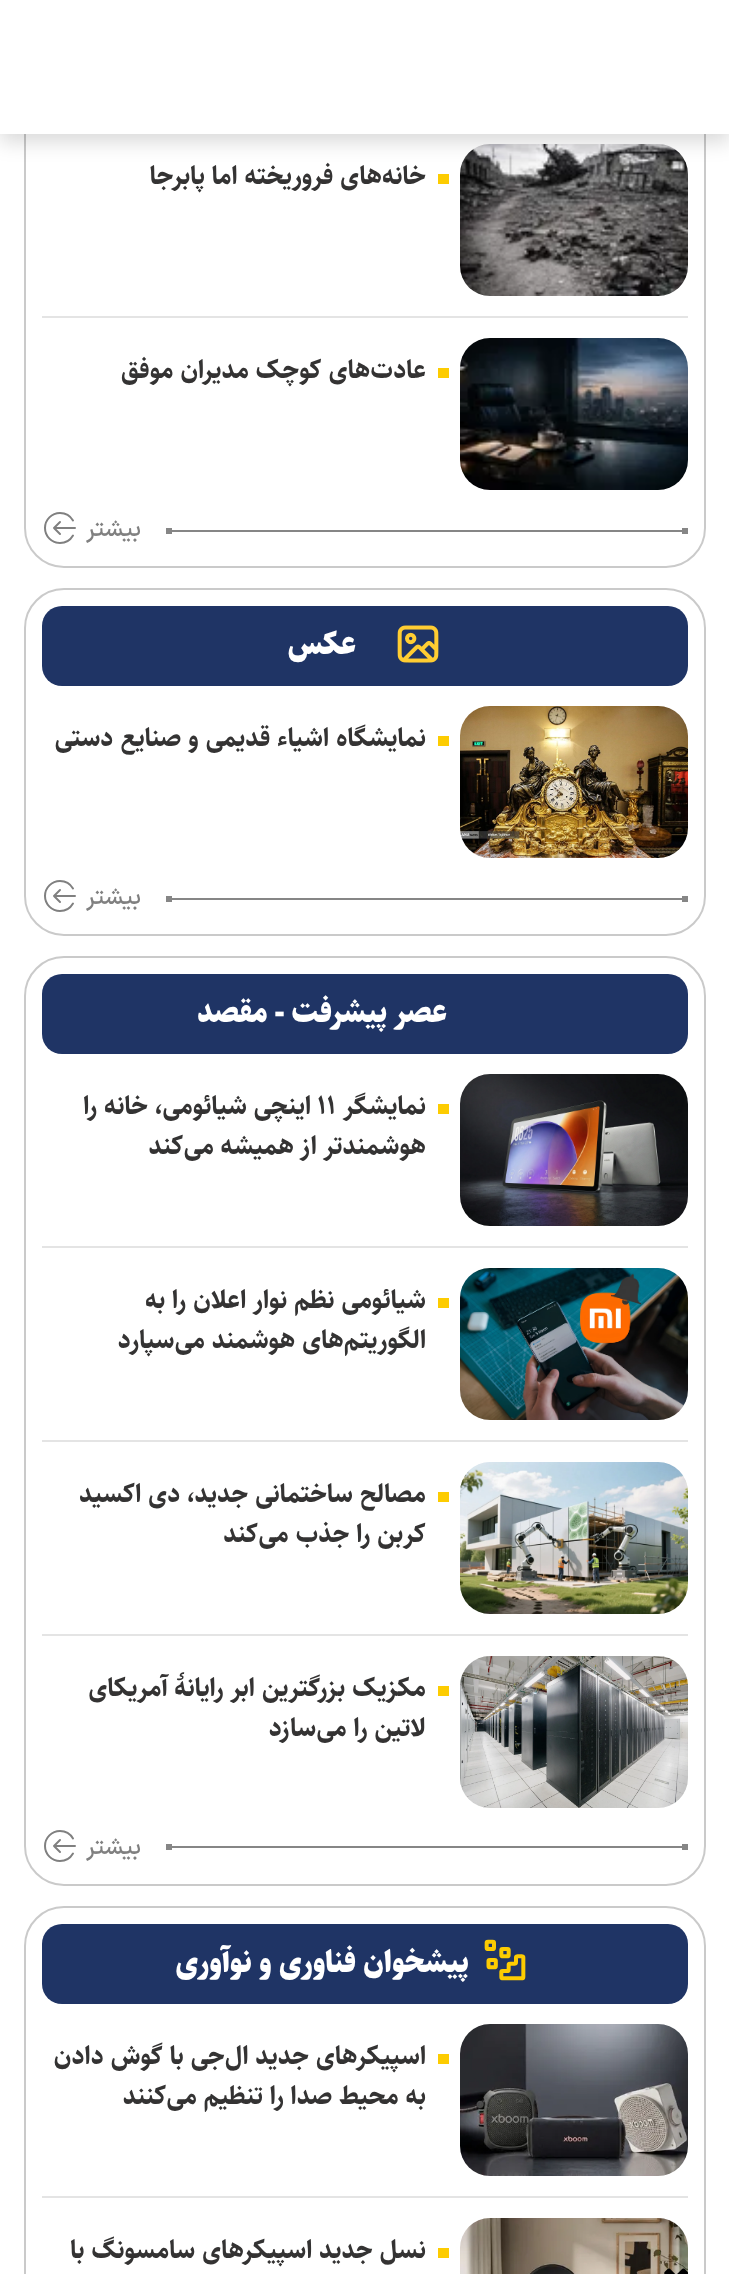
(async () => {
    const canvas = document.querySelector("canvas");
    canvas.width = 729;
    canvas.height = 2274;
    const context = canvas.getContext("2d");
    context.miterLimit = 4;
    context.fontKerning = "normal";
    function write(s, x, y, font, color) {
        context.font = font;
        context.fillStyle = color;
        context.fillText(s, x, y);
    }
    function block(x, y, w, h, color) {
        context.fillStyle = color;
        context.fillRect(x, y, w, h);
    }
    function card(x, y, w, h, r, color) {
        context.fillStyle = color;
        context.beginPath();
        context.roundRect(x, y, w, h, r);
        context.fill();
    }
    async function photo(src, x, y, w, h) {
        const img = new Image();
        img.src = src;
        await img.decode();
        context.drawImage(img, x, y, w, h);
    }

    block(0, 0, 729, 2274, "rgb(255, 255, 255)");
    context.beginPath();
    context.roundRect(25, -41, 680, 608, 39);
    context.strokeStyle = "rgb(202, 202, 202)";
    context.lineWidth = 2;
    context.stroke();
    await photo("media/1.png", 460, 144, 228, 152);
    context.fillStyle = "rgba(0, 0, 0, 0.15)";
    context.filter = "blur(10px)";
    context.beginPath();
    context.rect(0, 8, 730, 134);
    context.fill();
    context.filter = "none";
    block(0, 0, 729, 134, "rgb(255, 255, 255)");
    block(438, 174, 11, 10, "rgb(253, 204, 1)");
    context.direction = "rtl";
    write("خانه‌های فروریخته اما پابرجا", 426, 184, "bold 26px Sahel", "rgb(52, 51, 51)");
    block(42, 316, 646, 2, "rgb(228, 228, 228)");
    await photo("media/2.png", 460, 338, 228, 152);
    block(438, 368, 11, 10, "rgb(253, 204, 1)");
    write("عادت‌های کوچک مدیران موفق", 426, 378, "bold 26px Sahel", "rgb(52, 51, 51)");
    block(166, 530, 522, 2, "rgb(134, 134, 134)");
    block(682, 528, 6, 6, "rgb(134, 134, 134)");
    block(166, 528, 6, 6, "rgb(134, 134, 134)");
    write("بیشتر", 141, 536, "500 24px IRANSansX", "rgb(128, 128, 128)");
    await photo("media/3.png", 44, 512, 32, 32);
    context.beginPath();
    context.roundRect(25, 589, 680, 346, 39);
    context.stroke();
    card(42, 606, 646, 80, 20, "rgb(31, 52, 101)");
    await photo("media/4.png", 397, 625, 42, 38);
    write("عکس", 356, 654, "900 30px Sahel", "rgb(255, 255, 255)");
    await photo("media/5.png", 460, 706, 228, 152);
    block(438, 736, 11, 10, "rgb(253, 204, 1)");
    write("نمایشگاه اشیاء قدیمی و صنایع دستی", 426, 746, "bold 26px Sahel", "rgb(52, 51, 51)");
    block(166, 898, 522, 2, "rgb(134, 134, 134)");
    block(682, 896, 6, 6, "rgb(134, 134, 134)");
    block(166, 896, 6, 6, "rgb(134, 134, 134)");
    write("بیشتر", 141, 904, "500 24px IRANSansX", "rgb(128, 128, 128)");
    await photo("media/6.png", 44, 880, 32, 32);
    context.beginPath();
    context.roundRect(25, 957, 680, 928, 39);
    context.stroke();
    card(42, 974, 646, 80, 20, "rgb(31, 52, 101)");
    write("عصر پیشرفت - مقصد", 447, 1022, "900 30px Sahel", "rgb(255, 255, 255)");
    await photo("media/7.png", 460, 1074, 228, 152);
    block(438, 1104, 11, 10, "rgb(253, 204, 1)");
    write("نمایشگر", 426, 1114, "bold 26px Sahel", "rgb(52, 51, 51)");
    context.direction = "ltr";
    write("۱۱", 317, 1114, "bold 26px Sahel", "rgb(52, 51, 51)");
    context.direction = "rtl";
    write("اینچی شیائومی، خانه را", 311, 1114, "bold 26px Sahel", "rgb(52, 51, 51)");
    write("هوشمندتر از همیشه می‌کند", 426, 1154, "bold 26px Sahel", "rgb(52, 51, 51)");
    block(42, 1246, 646, 2, "rgb(228, 228, 228)");
    await photo("media/8.png", 460, 1268, 228, 152);
    block(438, 1298, 11, 10, "rgb(253, 204, 1)");
    write("شیائومی نظم نوار اعلان را به", 426, 1308, "bold 26px Sahel", "rgb(52, 51, 51)");
    write("الگوریتم‌های هوشمند می‌سپارد", 426, 1348, "bold 26px Sahel", "rgb(52, 51, 51)");
    block(42, 1440, 646, 2, "rgb(228, 228, 228)");
    await photo("media/9.png", 460, 1462, 228, 152);
    block(438, 1492, 11, 10, "rgb(253, 204, 1)");
    write("مصالح ساختمانی جدید، دی اکسید", 426, 1502, "bold 26px Sahel", "rgb(52, 51, 51)");
    write("کربن را جذب می‌کند", 426, 1542, "bold 26px Sahel", "rgb(52, 51, 51)");
    block(42, 1634, 646, 2, "rgb(228, 228, 228)");
    await photo("media/10.png", 460, 1656, 228, 152);
    block(438, 1686, 11, 10, "rgb(253, 204, 1)");
    write("مکزیک بزرگترین ابر رایانۀ آمریکای", 426, 1696, "bold 26px Sahel", "rgb(52, 51, 51)");
    write("لاتین را می‌سازد", 426, 1736, "bold 26px Sahel", "rgb(52, 51, 51)");
    block(166, 1846, 522, 2, "rgb(134, 134, 134)");
    block(682, 1844, 6, 6, "rgb(134, 134, 134)");
    block(166, 1844, 6, 6, "rgb(134, 134, 134)");
    write("بیشتر", 141, 1854, "500 24px IRANSansX", "rgb(128, 128, 128)");
    await photo("media/11.png", 44, 1830, 32, 32);
    context.beginPath();
    context.roundRect(25, 1907, 680, 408, 39);
    context.stroke();
    card(42, 1924, 646, 80, 20, "rgb(31, 52, 101)");
    await photo("media/12.png", 484, 1939, 42, 42);
    write("پیشخوان فناوری و نوآوری", 469, 1972, "900 30px Sahel", "rgb(255, 255, 255)");
    await photo("media/13.png", 460, 2024, 228, 152);
    block(438, 2054, 11, 10, "rgb(253, 204, 1)");
    write("اسپیکرهای جدید ال‌جی با گوش دادن", 426, 2064, "bold 26px Sahel", "rgb(52, 51, 51)");
    write("به محیط صدا را تنظیم می‌کنند", 426, 2104, "bold 26px Sahel", "rgb(52, 51, 51)");
    block(42, 2196, 646, 2, "rgb(228, 228, 228)");
    await photo("media/14.png", 460, 2218, 228, 56);
    block(438, 2248, 11, 10, "rgb(253, 204, 1)");
    write("نسل جدید اسپیکرهای سامسونگ با", 426, 2258, "bold 26px Sahel", "rgb(52, 51, 51)");
    await photo("media/15.png", 664, 2268, 25, 6);
})();
